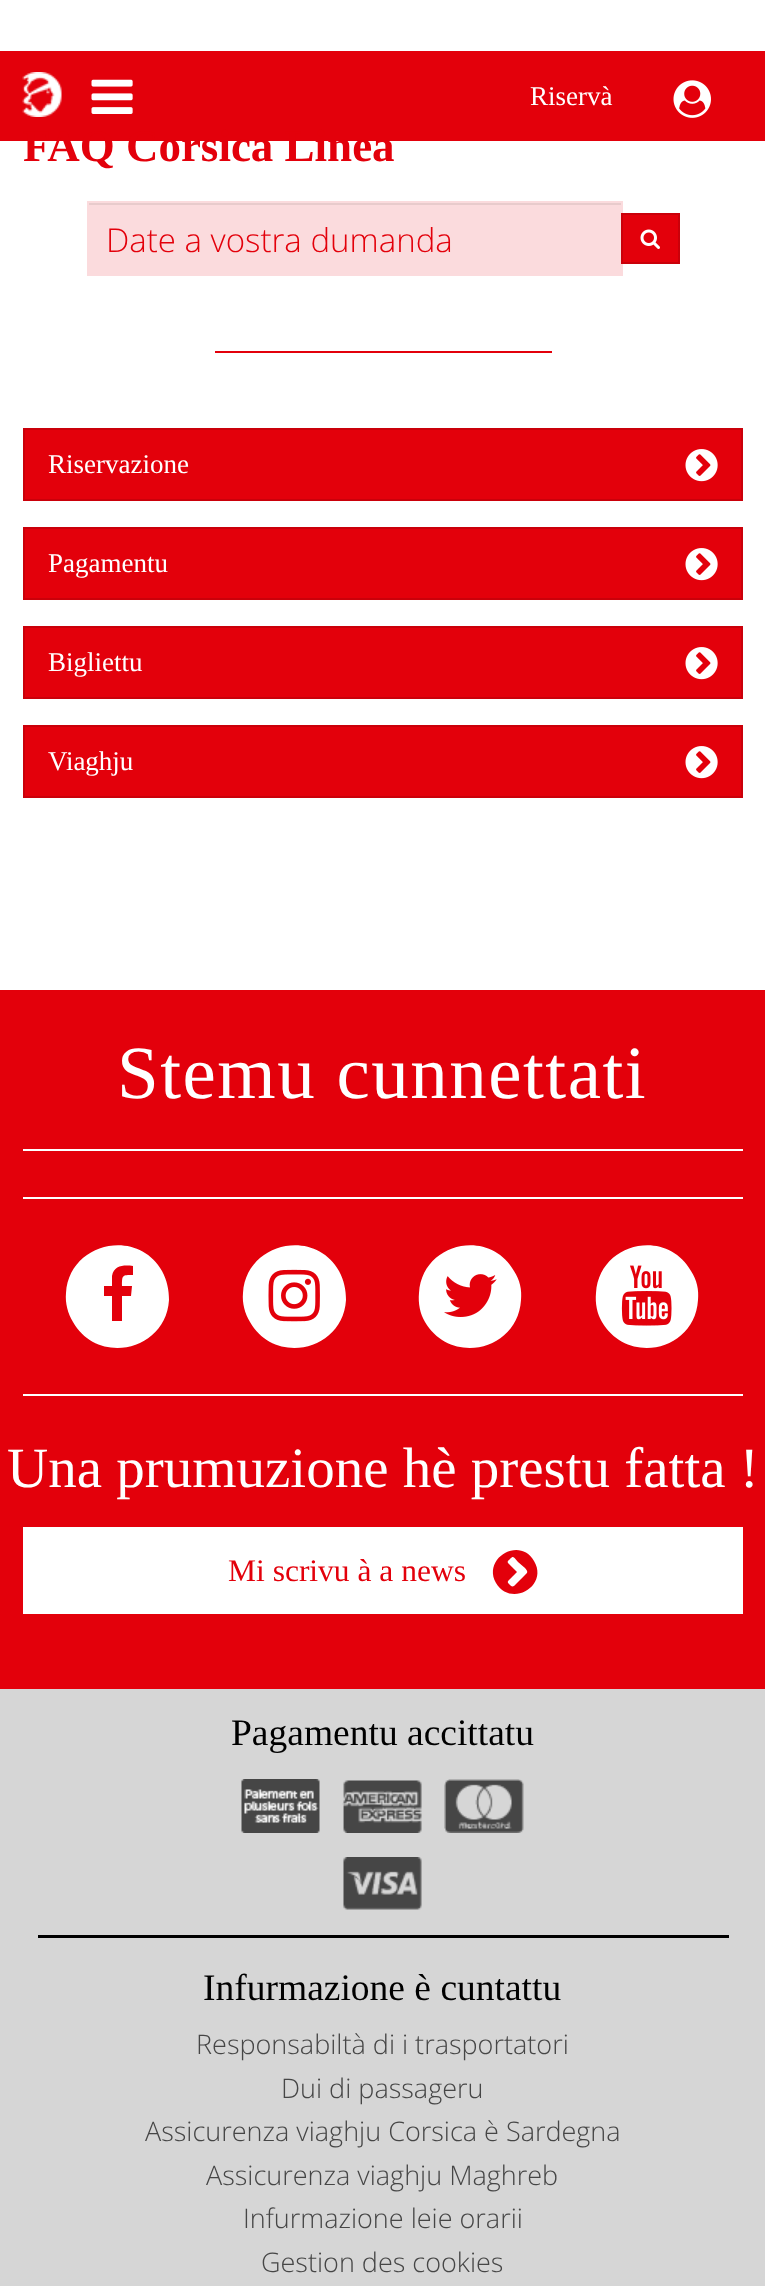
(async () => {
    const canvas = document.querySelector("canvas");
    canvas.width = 765;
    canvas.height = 2286;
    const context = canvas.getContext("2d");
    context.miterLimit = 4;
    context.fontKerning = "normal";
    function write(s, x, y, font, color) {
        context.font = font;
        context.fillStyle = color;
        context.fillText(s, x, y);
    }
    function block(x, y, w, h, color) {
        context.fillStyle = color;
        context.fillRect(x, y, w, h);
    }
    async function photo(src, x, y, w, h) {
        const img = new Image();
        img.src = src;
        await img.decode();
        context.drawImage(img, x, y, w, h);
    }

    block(0, 0, 765, 2286, "rgb(255, 255, 255)");
    block(0, 51, 765, 90, "rgb(227, 0, 11)");
    await photo("media/1.png", 22, 72, 40, 45);
    await photo("media/2.png", 91, 79, 42, 35);
    write("Riservà", 530, 105, "27px Liberation Serif", "rgb(255, 255, 255)");
    await photo("media/3.png", 673, 80, 38, 38);
    write("FAQ Corsica Linea", 23, 161, "bold 45px Liberation Serif", "rgb(227, 0, 11)");
    block(87, 201, 536, 75, "rgb(251, 219, 221)");
    block(89, 203, 532, 2, "rgb(232, 203, 204)");
    write("Date a vostra dumanda", 106, 252, "300 33px Open Sans", "rgb(227, 0, 11)");
    context.beginPath();
    context.rect(622, 214, 57, 49);
    context.fill();
    context.strokeStyle = "rgb(202, 0, 10)";
    context.lineWidth = 2;
    context.stroke();
    await photo("media/4.png", 640, 229, 20, 20);
    block(215, 351, 337, 2, "rgb(227, 0, 11)");
    context.beginPath();
    context.rect(24, 429, 718, 71);
    context.fill();
    context.stroke();
    write("Riservazione", 48, 473, "27px Liberation Serif", "rgb(255, 255, 255)");
    await photo("media/5.png", 685, 449, 33, 33);
    context.fillStyle = "rgb(227, 0, 11)";
    context.beginPath();
    context.rect(24, 528, 718, 71);
    context.fill();
    context.stroke();
    write("Pagamentu", 48, 572, "27px Liberation Serif", "rgb(255, 255, 255)");
    await photo("media/5.png", 685, 548, 33, 33);
    context.fillStyle = "rgb(227, 0, 11)";
    context.beginPath();
    context.rect(24, 627, 718, 71);
    context.fill();
    context.stroke();
    write("Bigliettu", 48, 671, "27px Liberation Serif", "rgb(255, 255, 255)");
    await photo("media/5.png", 685, 647, 33, 33);
    context.fillStyle = "rgb(227, 0, 11)";
    context.beginPath();
    context.rect(24, 726, 718, 71);
    context.fill();
    context.stroke();
    write("Viaghju", 48, 770, "27px Liberation Serif", "rgb(255, 255, 255)");
    await photo("media/5.png", 685, 746, 33, 33);
    block(0, 990, 765, 699, "rgb(227, 0, 11)");
    context.letterSpacing = "1.5px";
    write("Stemu cunnettati", 117, 1098, "75px Liberation Serif", "rgb(255, 255, 255)");
    block(23, 1149, 720, 2, "rgb(255, 255, 255)");
    block(23, 1197, 720, 2, "rgb(255, 255, 255)");
    context.beginPath();
    context.moveTo(162, 1271);
    context.bezierCurveTo(167, 1280, 169, 1290, 169, 1300);
    context.bezierCurveTo(166, 1351, 98, 1366, 73, 1322);
    context.bezierCurveTo(68, 1314, 65, 1303, 66, 1293);
    context.bezierCurveTo(69, 1243, 137, 1227, 162, 1271);
    context.closePath();
    context.fill();
    context.fillStyle = "rgb(227, 0, 11)";
    context.beginPath();
    context.moveTo(133, 1266);
    context.lineTo(133, 1275);
    context.bezierCurveTo(122, 1275, 122, 1275, 122, 1286);
    context.lineTo(132, 1286);
    context.lineTo(131, 1296);
    context.lineTo(122, 1296);
    context.lineTo(122, 1321);
    context.lineTo(112, 1321);
    context.lineTo(112, 1296);
    context.lineTo(104, 1296);
    context.lineTo(104, 1286);
    context.lineTo(112, 1286);
    context.lineTo(112, 1276);
    context.bezierCurveTo(114, 1265, 124, 1265, 133, 1266);
    context.closePath();
    context.fill();
    context.fillStyle = "rgb(255, 255, 255)";
    context.beginPath();
    context.moveTo(339, 1271);
    context.bezierCurveTo(344, 1280, 346, 1290, 346, 1300);
    context.bezierCurveTo(343, 1351, 275, 1366, 250, 1322);
    context.bezierCurveTo(245, 1314, 242, 1303, 243, 1293);
    context.bezierCurveTo(246, 1243, 314, 1227, 339, 1271);
    context.closePath();
    context.fill();
    await photo("media/6.png", 268, 1269, 52, 53);
    context.beginPath();
    context.moveTo(514, 1271);
    context.bezierCurveTo(520, 1280, 522, 1290, 521, 1300);
    context.bezierCurveTo(518, 1351, 451, 1366, 425, 1322);
    context.bezierCurveTo(420, 1314, 418, 1303, 419, 1293);
    context.bezierCurveTo(422, 1243, 489, 1227, 514, 1271);
    context.closePath();
    context.fill();
    await photo("media/7.png", 444, 1274, 53, 43);
    context.beginPath();
    context.moveTo(691, 1271);
    context.bezierCurveTo(697, 1280, 699, 1290, 698, 1300);
    context.bezierCurveTo(695, 1351, 628, 1366, 602, 1322);
    context.bezierCurveTo(597, 1314, 595, 1303, 596, 1293);
    context.bezierCurveTo(599, 1243, 666, 1227, 691, 1271);
    context.closePath();
    context.fill();
    await photo("media/8.png", 621, 1265, 51, 61);
    block(23, 1394, 720, 2, "rgb(255, 255, 255)");
    context.letterSpacing = "0px";
    write("Una prumuzione hè prestu fatta !", 7, 1487, "57px Liberation Serif", "rgb(255, 255, 255)");
    block(23, 1527, 720, 87, "rgb(255, 255, 255)");
    write("Mi scrivu à a news", 228, 1581, "31.5px Liberation Serif", "rgb(227, 0, 11)");
    context.beginPath();
    context.moveTo(514, 1586);
    context.lineTo(525, 1575);
    context.bezierCurveTo(528, 1572, 528, 1572, 525, 1568);
    context.lineTo(518, 1562);
    context.bezierCurveTo(514, 1558, 514, 1555, 510, 1559);
    context.bezierCurveTo(509, 1560, 507, 1561, 508, 1563);
    context.lineTo(517, 1572);
    context.lineTo(510, 1579);
    context.bezierCurveTo(507, 1582, 507, 1582, 510, 1585);
    context.bezierCurveTo(511, 1586, 512, 1587, 514, 1586);
    context.closePath();
    context.moveTo(534, 1561);
    context.bezierCurveTo(549, 1586, 511, 1608, 496, 1583);
    context.bezierCurveTo(482, 1558, 520, 1536, 534, 1561);
    context.closePath();
    context.fill();
    block(0, 1689, 765, 597, "rgb(214, 214, 214)");
    write("Pagamentu accittatu", 231, 1745, "37.5px Liberation Serif", "rgb(0, 0, 0)");
    await photo("media/9.png", 241, 1779, 79, 54);
    await photo("media/10.png", 342, 1780, 80, 53);
    await photo("media/11.png", 444, 1779, 80, 54);
    await photo("media/12.png", 343, 1857, 79, 53);
    block(38, 1935, 691, 3, "rgb(0, 0, 0)");
    write("Infurmazione è cuntattu", 203, 2000, "37.5px Liberation Serif", "rgb(0, 0, 0)");
    write("Responsabiltà di i trasportatori", 196, 2054, "300 27px Open Sans", "rgb(70, 70, 70)");
    write("Dui di passageru", 281, 2098, "300 27px Open Sans", "rgb(70, 70, 70)");
    write("Assicurenza viaghju Corsica è Sardegna", 145, 2141, "300 27px Open Sans", "rgb(70, 70, 70)");
    write("Assicurenza viaghju Maghreb", 206, 2185, "300 27px Open Sans", "rgb(70, 70, 70)");
    write("Infurmazione leie orarii", 243, 2228, "300 27px Open Sans", "rgb(70, 70, 70)");
    write("Gestion des cookies", 261, 2272, "300 27px Open Sans", "rgb(70, 70, 70)");
})();
